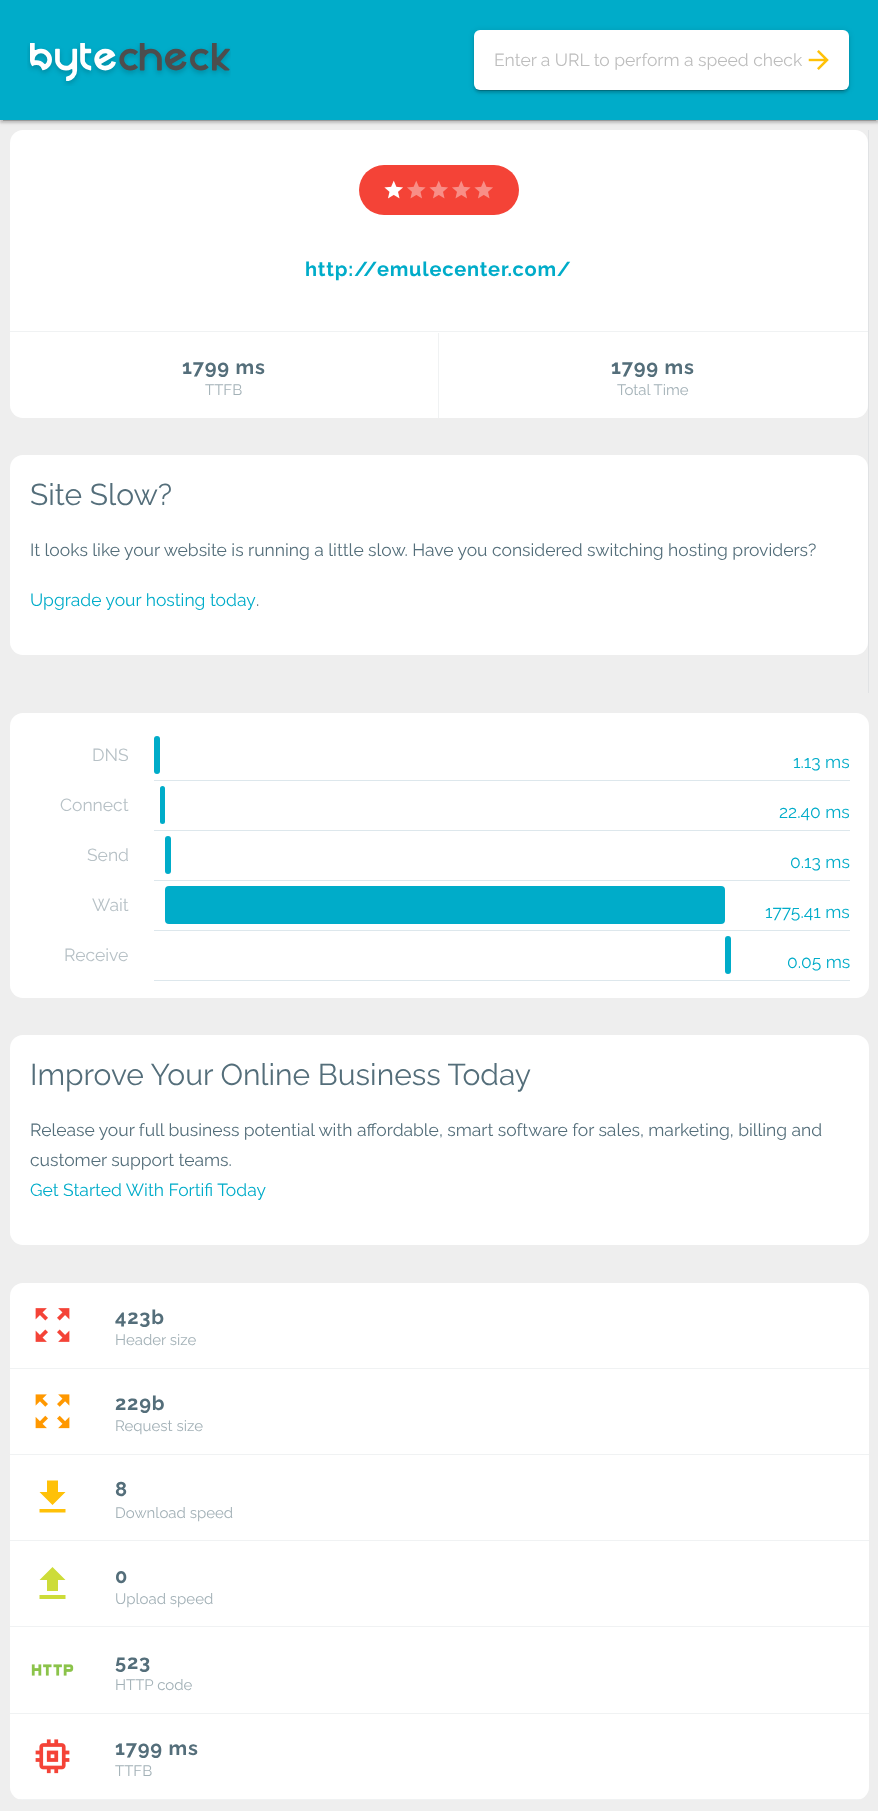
(async () => {
    const canvas = document.querySelector("canvas");
    canvas.width = 878;
    canvas.height = 1811;
    const context = canvas.getContext("2d");
    context.miterLimit = 4;
    context.fontKerning = "normal";
    function write(s, x, y, font, color) {
        context.font = font;
        context.fillStyle = color;
        context.fillText(s, x, y);
    }
    function block(x, y, w, h, color) {
        context.fillStyle = color;
        context.fillRect(x, y, w, h);
    }
    function card(x, y, w, h, r, color) {
        context.fillStyle = color;
        context.beginPath();
        context.roundRect(x, y, w, h, r);
        context.fill();
    }
    async function photo(src, x, y, w, h) {
        const img = new Image();
        img.src = src;
        await img.decode();
        context.drawImage(img, x, y, w, h);
    }

    block(0, 0, 878, 1811, "rgb(238, 238, 238)");
    block(868, 130, 1, 563, "rgb(224, 226, 228)");
    card(10, 130, 858, 288, 13, "rgb(255, 255, 255)");
    context.fillStyle = "rgba(0, 0, 0, 0.12)";
    context.filter = "blur(3px)";
    context.beginPath();
    context.rect(0, 1, 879, 120);
    context.fill();
    context.filter = "none";
    context.fillStyle = "rgba(0, 0, 0, 0.2)";
    context.filter = "blur(0.5px)";
    context.beginPath();
    context.rect(3, 6, 873, 115);
    context.fill();
    context.filter = "none";
    context.fillStyle = "rgba(0, 0, 0, 0.14)";
    context.filter = "blur(1px)";
    context.beginPath();
    context.rect(0, 3, 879, 120);
    context.fill();
    context.filter = "none";
    block(0, 0, 878, 120, "rgb(0, 172, 201)");
    await photo("media/1.png", 27, 43, 204, 43);
    context.fillStyle = "rgba(0, 0, 0, 0.12)";
    context.filter = "blur(3px)";
    context.beginPath();
    context.roundRect(474, 31, 375, 60, 6);
    context.fill();
    context.filter = "none";
    context.fillStyle = "rgba(0, 0, 0, 0.2)";
    context.filter = "blur(0.5px)";
    context.beginPath();
    context.roundRect(476, 36, 370, 55, 4);
    context.fill();
    context.filter = "none";
    context.fillStyle = "rgba(0, 0, 0, 0.14)";
    context.filter = "blur(1px)";
    context.beginPath();
    context.roundRect(474, 33, 375, 60, 6);
    context.fill();
    context.filter = "none";
    card(474, 30, 375, 60, 6, "rgb(255, 255, 255)");
    write("Enter a URL to perform a speed check", 494, 66, "17.5px Raleway", "rgb(189, 189, 189)");
    await photo("media/2.png", 808, 50, 21, 20);
    card(359, 165, 160, 50, 25, "rgb(244, 67, 55)");
    await photo("media/3.png", 384, 180, 19, 19);
    await photo("media/4.png", 407, 180, 19, 19);
    await photo("media/5.png", 429, 180, 19, 19);
    await photo("media/4.png", 452, 180, 19, 19);
    await photo("media/5.png", 474, 180, 19, 19);
    context.letterSpacing = "0.8px";
    write("http://emulecenter.com/", 305, 276, "bold 20px Raleway", "rgb(0, 172, 201)");
    block(10, 331, 858, 1, "rgb(240, 242, 243)");
    block(438, 333, 1, 85, "rgb(240, 242, 243)");
    write("1799 ms", 182, 374, "bold 20px Raleway", "rgb(84, 110, 122)");
    context.letterSpacing = "0px";
    write("TTFB", 205, 395, "15px Raleway", "rgb(163, 177, 183)");
    context.letterSpacing = "0.8px";
    write("1799 ms", 611, 374, "bold 20px Raleway", "rgb(84, 110, 122)");
    context.letterSpacing = "0px";
    write("Total Time", 617, 395, "15px Raleway", "rgb(163, 177, 183)");
    card(10, 455, 858, 200, 13, "rgb(255, 255, 255)");
    write("Site Slow?", 30, 505, "30px Raleway", "rgb(84, 110, 122)");
    write("It looks like your website is running a little slow. Have you considered switching hosting providers?", 30, 556, "17.5px Raleway", "rgb(84, 110, 122)");
    write("Upgrade your hosting today", 30, 606, "17.5px Raleway", "rgb(0, 172, 201)");
    write(".", 256, 606, "17.5px Raleway", "rgb(84, 110, 122)");
    card(10, 713, 859, 285, 13, "rgb(255, 255, 255)");
    write("DNS", 92, 761, "17.5px Raleway", "rgb(183, 193, 198)");
    block(154, 780, 696, 1, "rgb(221, 231, 236)");
    card(154, 736, 6, 38, 3, "rgb(0, 172, 201)");
    write("1.13 ms", 793, 768, "17.5px Raleway", "rgb(0, 172, 201)");
    write("Connect", 60, 811, "17.5px Raleway", "rgb(183, 193, 198)");
    block(154, 830, 696, 1, "rgb(221, 231, 236)");
    card(160, 786, 5, 38, 2.5, "rgb(0, 172, 201)");
    write("22.40 ms", 779, 818, "17.5px Raleway", "rgb(0, 172, 201)");
    write("Send", 87, 861, "17.5px Raleway", "rgb(183, 193, 198)");
    block(154, 880, 696, 1, "rgb(221, 231, 236)");
    card(165, 836, 6, 38, 3, "rgb(0, 172, 201)");
    write("0.13 ms", 790, 868, "17.5px Raleway", "rgb(0, 172, 201)");
    write("Wait", 92, 911, "17.5px Raleway", "rgb(183, 193, 198)");
    block(154, 930, 696, 1, "rgb(221, 231, 236)");
    card(165, 886, 560, 38, 4, "rgb(0, 172, 201)");
    write("1775.41 ms", 765, 918, "17.5px Raleway", "rgb(0, 172, 201)");
    write("Receive", 64, 961, "17.5px Raleway", "rgb(183, 193, 198)");
    block(154, 980, 696, 1, "rgb(221, 231, 236)");
    card(725, 936, 6, 38, 3, "rgb(0, 172, 201)");
    write("0.05 ms", 787, 968, "17.5px Raleway", "rgb(0, 172, 201)");
    card(10, 1035, 859, 210, 13, "rgb(255, 255, 255)");
    write("Improve Your Online Business Today", 30, 1085, "30px Raleway", "rgb(84, 110, 122)");
    write("Release your full business potential with affordable, smart software for sales, marketing, billing and", 30, 1136, "17.5px Raleway", "rgb(84, 110, 122)");
    write("customer support teams.", 30, 1166, "17.5px Raleway", "rgb(84, 110, 122)");
    write("Get Started With Fortifi Today", 30, 1196, "17.5px Raleway", "rgb(0, 172, 201)");
    card(10, 1283, 859, 517, 13, "rgb(255, 255, 255)");
    block(10, 1368, 859, 1, "rgb(240, 242, 243)");
    await photo("media/6.png", 35, 1308, 35, 34);
    context.letterSpacing = "0.8px";
    write("423b", 115, 1324, "bold 20px Raleway", "rgb(84, 110, 122)");
    context.letterSpacing = "0px";
    write("Header size", 115, 1345, "15px Raleway", "rgb(163, 177, 183)");
    block(10, 1454, 859, 1, "rgb(240, 242, 243)");
    await photo("media/7.png", 35, 1394, 35, 35);
    context.letterSpacing = "0.8px";
    write("229b", 115, 1410, "bold 20px Raleway", "rgb(84, 110, 122)");
    context.letterSpacing = "0px";
    write("Request size", 115, 1431, "15px Raleway", "rgb(163, 177, 183)");
    block(10, 1540, 859, 1, "rgb(240, 242, 243)");
    context.fillStyle = "rgb(255, 193, 8)";
    context.beginPath();
    context.moveTo(39.5, 1509);
    context.lineTo(65.5, 1509);
    context.lineTo(65.5, 1512.5);
    context.lineTo(39.5, 1512.5);
    context.closePath();
    context.moveTo(65.5, 1492);
    context.lineTo(52.5, 1505);
    context.lineTo(39.5, 1492);
    context.lineTo(47, 1492);
    context.lineTo(47, 1480.5);
    context.lineTo(58, 1480.5);
    context.lineTo(58, 1492);
    context.closePath();
    context.fill();
    context.letterSpacing = "0.8px";
    write("8", 115, 1496, "bold 20px Raleway", "rgb(84, 110, 122)");
    context.letterSpacing = "0px";
    write("Download speed", 115, 1518, "15px Raleway", "rgb(163, 177, 183)");
    block(10, 1626, 859, 1, "rgb(240, 242, 243)");
    context.fillStyle = "rgb(205, 220, 57)";
    context.beginPath();
    context.moveTo(39.5, 1595);
    context.lineTo(65.5, 1595);
    context.lineTo(65.5, 1599);
    context.lineTo(39.5, 1599);
    context.closePath();
    context.moveTo(47, 1591);
    context.lineTo(47, 1580);
    context.lineTo(39.5, 1580);
    context.lineTo(52.5, 1567);
    context.lineTo(65.5, 1580);
    context.lineTo(58, 1580);
    context.lineTo(58, 1591);
    context.closePath();
    context.fill();
    context.letterSpacing = "0.8px";
    write("0", 115, 1583, "bold 20px Raleway", "rgb(84, 110, 122)");
    context.letterSpacing = "0px";
    write("Upload speed", 115, 1604, "15px Raleway", "rgb(163, 177, 183)");
    block(10, 1713, 859, 1, "rgb(240, 242, 243)");
    await photo("media/8.png", 31, 1664, 43, 12);
    context.letterSpacing = "0.8px";
    write("523", 115, 1669, "bold 20px Raleway", "rgb(84, 110, 122)");
    context.letterSpacing = "0px";
    write("HTTP code", 115, 1690, "15px Raleway", "rgb(163, 177, 183)");
    context.save();
    context.beginPath();
    context.roundRect(10, 1283, 859, 517, 13);
    context.clip();
    block(19, 1799, 841, 1, "rgba(84, 110, 122, 0.09)");
    context.restore();
    await photo("media/9.png", 35, 1739, 35, 35);
    context.letterSpacing = "0.8px";
    write("1799 ms", 115, 1755, "bold 20px Raleway", "rgb(84, 110, 122)");
    context.letterSpacing = "0px";
    write("TTFB", 115, 1776, "15px Raleway", "rgb(163, 177, 183)");
})();
